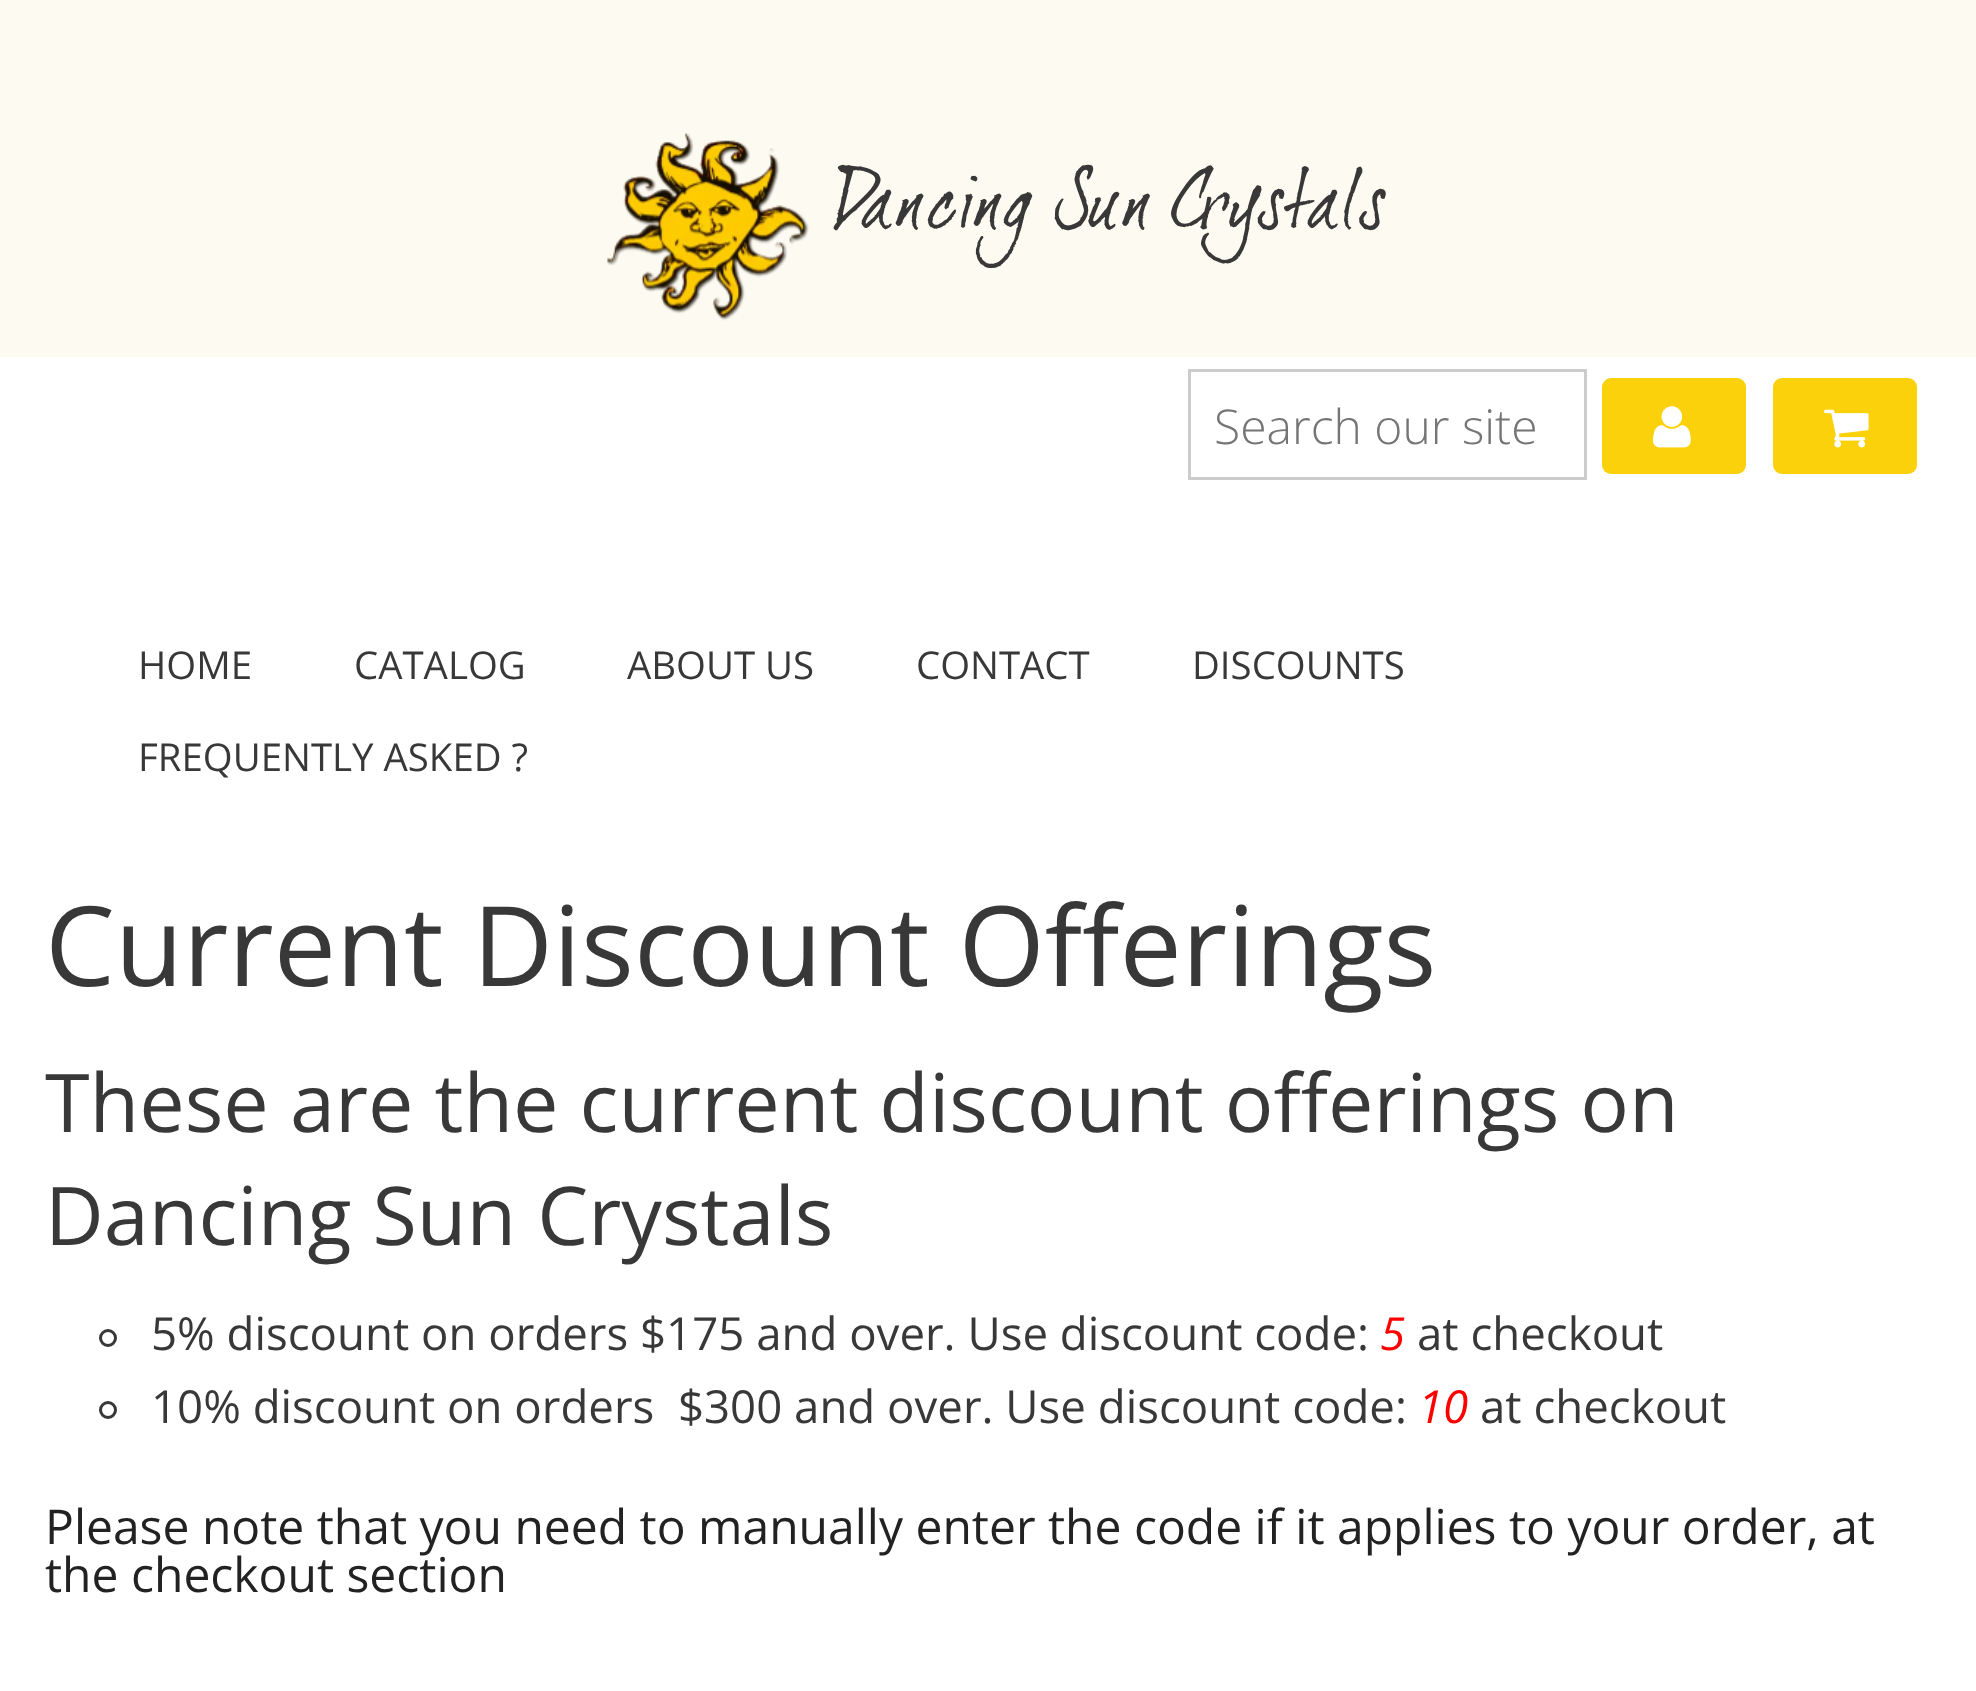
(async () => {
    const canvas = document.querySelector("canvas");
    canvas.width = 1976;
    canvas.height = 1691;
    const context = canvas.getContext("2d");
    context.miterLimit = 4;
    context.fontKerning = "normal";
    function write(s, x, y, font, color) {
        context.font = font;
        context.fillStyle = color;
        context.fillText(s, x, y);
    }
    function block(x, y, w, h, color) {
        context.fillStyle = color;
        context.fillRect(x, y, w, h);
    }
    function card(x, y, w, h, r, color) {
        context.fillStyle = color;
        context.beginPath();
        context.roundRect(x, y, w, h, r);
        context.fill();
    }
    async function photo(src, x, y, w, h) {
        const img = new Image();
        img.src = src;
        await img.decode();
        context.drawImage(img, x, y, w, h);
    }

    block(0, 0, 1976, 1691, "rgb(255, 255, 255)");
    block(0, 0, 1976, 357, "rgb(252, 250, 241)");
    await photo("media/1.png", 607, 133, 202, 188);
    write("Dancing Sun Crystals", 835, 227, "81px 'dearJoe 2'", "rgb(56, 56, 56)");
    context.strokeStyle = "rgb(204, 204, 204)";
    context.lineWidth = 3;
    context.strokeRect(1189.5, 370.5, 396, 108);
    write("Search our site", 1214, 444, "300 48px Open Sans", "rgb(117, 117, 117)");
    card(1602, 378, 144, 96, 9, "rgb(251, 209, 11)");
    await photo("media/2.png", 1653, 406, 38, 42);
    card(1773, 378, 144, 96, 9, "rgb(251, 209, 11)");
    await photo("media/3.png", 1824, 409, 45, 39);
    write("HOME", 138, 679, "38.4px Open Sans", "rgb(56, 56, 56)");
    write("CATALOG", 354, 679, "38.4px Open Sans", "rgb(56, 56, 56)");
    write("ABOUT US", 627, 679, "38.4px Open Sans", "rgb(56, 56, 56)");
    write("CONTACT", 916, 679, "38.4px Open Sans", "rgb(56, 56, 56)");
    write("DISCOUNTS", 1192, 679, "38.4px Open Sans", "rgb(56, 56, 56)");
    write("FREQUENTLY ASKED ?", 138, 771, "38.4px Open Sans", "rgb(56, 56, 56)");
    write("Current Discount Offerings", 45, 986, "111px Open Sans", "rgb(56, 56, 56)");
    write("These are the current discount offerings on", 45, 1132, "81px Open Sans", "rgb(56, 56, 56)");
    write("Dancing Sun Crystals", 45, 1245, "81px Open Sans", "rgb(56, 56, 56)");
    context.beginPath();
    context.arc(108, 1338, 7.5, 0, Math.PI * 2);
    context.strokeStyle = "rgb(56, 56, 56)";
    context.stroke();
    write("5% discount on orders $175 and over. Use discount code:", 151, 1350, "45.6px Open Sans", "rgb(56, 56, 56)");
    write("5", 1380, 1350, "italic 45.6px Open Sans", "rgb(255, 0, 0)");
    write("at checkout", 1417, 1350, "45.6px Open Sans", "rgb(56, 56, 56)");
    context.beginPath();
    context.arc(108, 1410, 7.5, 0, Math.PI * 2);
    context.stroke();
    write("10% discount on orders  $300 and over. Use discount code:", 151, 1423, "45.6px Open Sans", "rgb(56, 56, 56)");
    write("10", 1418, 1423, "italic 45.6px Open Sans", "rgb(255, 0, 0)");
    write("at checkout", 1480, 1423, "45.6px Open Sans", "rgb(56, 56, 56)");
    write("Please note that you need to manually enter the code if it applies to your order, at", 45, 1544, "48px Open Sans", "rgb(34, 34, 34)");
    write("the checkout section", 45, 1592, "48px Open Sans", "rgb(34, 34, 34)");
})();
